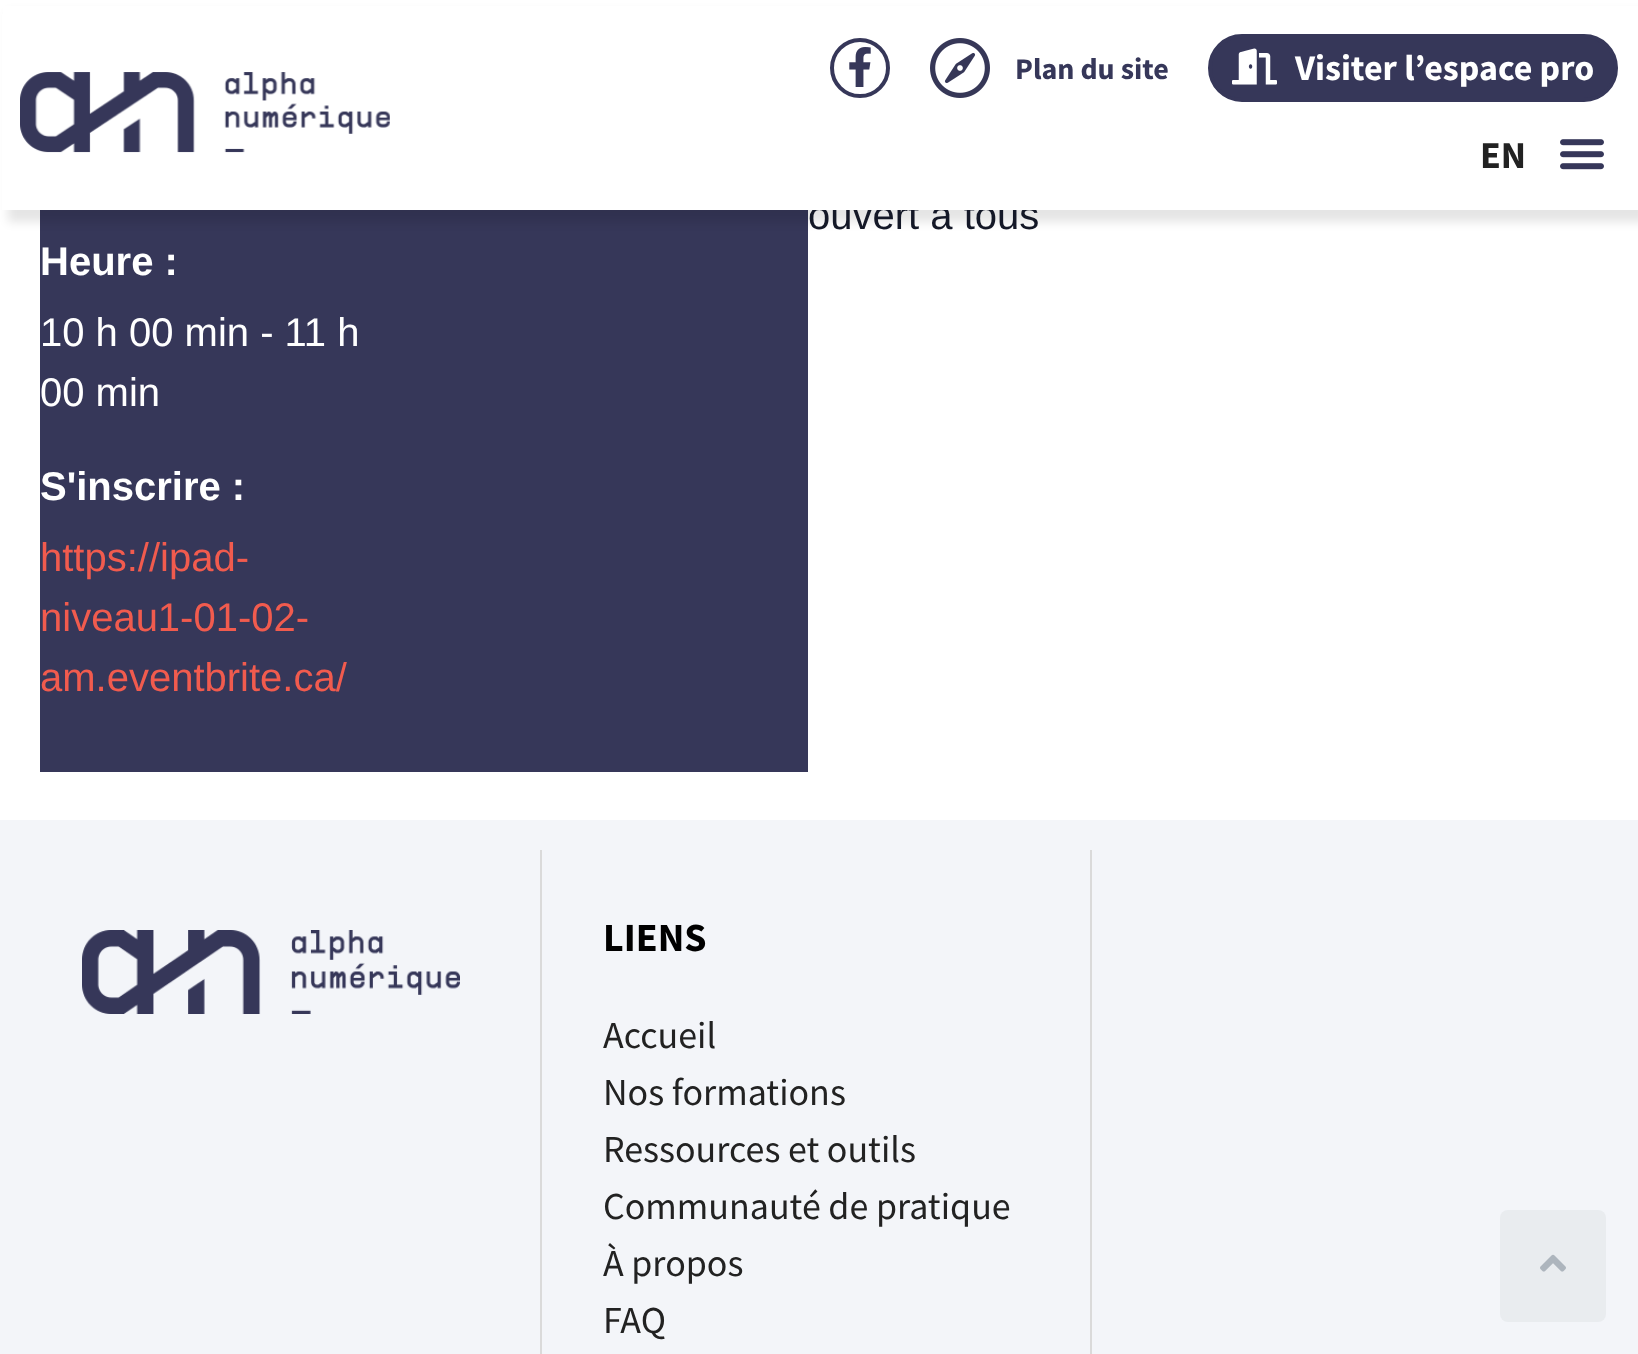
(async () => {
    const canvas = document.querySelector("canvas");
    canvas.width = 1638;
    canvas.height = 1354;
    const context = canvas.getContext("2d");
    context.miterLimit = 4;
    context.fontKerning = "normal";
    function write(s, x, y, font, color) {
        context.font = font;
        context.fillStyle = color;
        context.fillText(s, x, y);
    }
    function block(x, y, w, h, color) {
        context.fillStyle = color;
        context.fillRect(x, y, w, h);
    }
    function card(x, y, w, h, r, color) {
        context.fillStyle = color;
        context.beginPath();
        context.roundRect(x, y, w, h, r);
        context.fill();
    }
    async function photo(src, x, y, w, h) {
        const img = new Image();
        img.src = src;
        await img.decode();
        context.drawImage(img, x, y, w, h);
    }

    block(0, 0, 1638, 1354, "rgb(255, 255, 255)");
    block(40, 210, 768, 562, "rgb(54, 55, 89)");
    context.fillStyle = "rgba(0, 0, 0, 0.1)";
    context.filter = "blur(5px)";
    context.beginPath();
    context.rect(8, 12, 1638, 210);
    context.fill();
    context.filter = "none";
    write("ouvert à tous", 808, 229, "40px Liberation Sans", "rgb(20, 24, 39)");
    block(2, 14, 1636, 196, "rgb(255, 255, 255)");
    block(3, 6, 1635, 8, "rgb(255, 255, 255)");
    await photo("media/1.png", 20, 72, 370, 81);
    context.beginPath();
    context.arc(860, 68, 28, 0, Math.PI * 2);
    context.strokeStyle = "rgb(54, 55, 89)";
    context.lineWidth = 4;
    context.stroke();
    await photo("media/2.png", 849, 47, 22, 40);
    await photo("media/3.png", 930, 38, 60, 60);
    write("Plan du site", 1015, 79, "bold 30px Source Sans Pro", "rgb(54, 55, 89)");
    context.beginPath();
    context.roundRect(1210, 36, 406, 64, 32);
    context.fill();
    context.stroke();
    await photo("media/4.png", 1232, 48, 45, 37);
    write("Visiter l’espace pro", 1295, 80, "bold 36px Source Sans Pro", "rgb(255, 255, 255)");
    write("EN", 1480, 168, "bold 38px Source Sans Pro", "rgb(34, 34, 34)");
    await photo("media/5.png", 1560, 139, 44, 31);
    write("Heure :", 40, 275, "bold 40px Liberation Sans", "rgb(255, 255, 255)");
    write("10 h 00 min - 11 h", 40, 346, "40px Liberation Sans", "rgb(255, 255, 255)");
    write("00 min", 40, 406, "40px Liberation Sans", "rgb(255, 255, 255)");
    write("S'inscrire :", 40, 500, "bold 40px Liberation Sans", "rgb(255, 255, 255)");
    write("https://ipad-", 40, 571, "40px Liberation Sans", "rgb(241, 91, 78)");
    write("niveau1-01-02-", 40, 631, "40px Liberation Sans", "rgb(241, 91, 78)");
    write("am.eventbrite.ca/", 40, 691, "40px Liberation Sans", "rgb(241, 91, 78)");
    block(0, 820, 1638, 534, "rgb(243, 245, 249)");
    await photo("media/6.png", 82, 930, 378, 84);
    block(1090, 850, 2, 504, "rgb(218, 218, 218)");
    block(540, 850, 2, 504, "rgb(218, 218, 218)");
    write("LIENS", 603, 951, "bold 40px Source Sans Pro", "rgb(0, 0, 0)");
    write("Accueil", 603, 1048, "38px Source Sans Pro", "rgb(34, 34, 34)");
    write("Nos formations", 603, 1105, "38px Source Sans Pro", "rgb(34, 34, 34)");
    write("Ressources et outils", 603, 1162, "38px Source Sans Pro", "rgb(34, 34, 34)");
    write("Communauté de pratique", 603, 1219, "38px Source Sans Pro", "rgb(34, 34, 34)");
    write("À propos", 603, 1276, "38px Source Sans Pro", "rgb(34, 34, 34)");
    write("FAQ", 603, 1333, "38px Source Sans Pro", "rgb(34, 34, 34)");
    card(1500, 1210, 106, 112, 8, "rgb(233, 236, 239)");
    await photo("media/7.png", 1540, 1254, 26, 18);
})();
